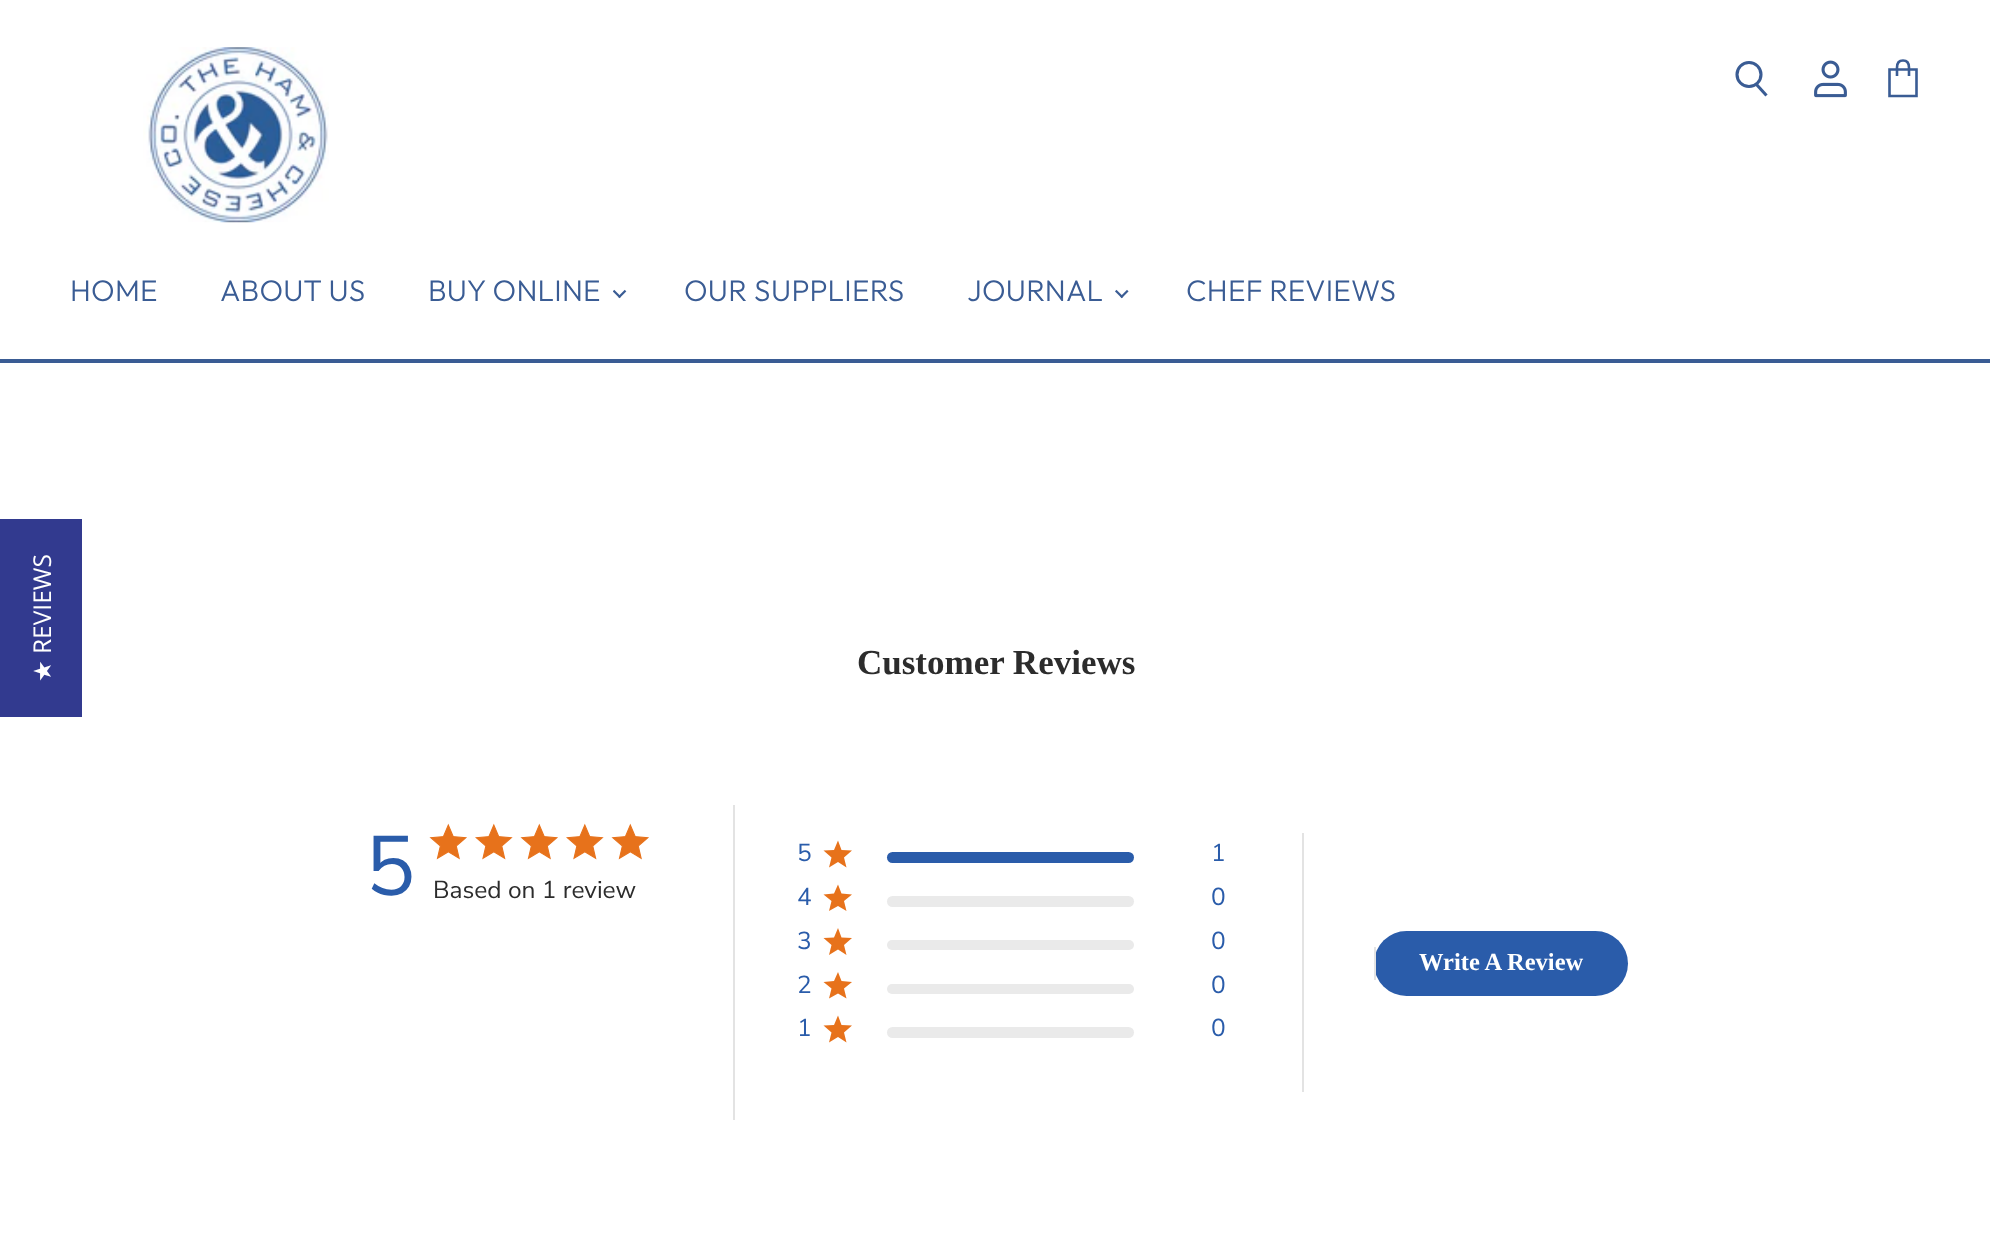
(async () => {
    const canvas = document.querySelector("canvas");
    canvas.width = 1990;
    canvas.height = 1235;
    const context = canvas.getContext("2d");
    context.miterLimit = 4;
    context.fontKerning = "normal";
    function write(s, x, y, font, color) {
        context.font = font;
        context.fillStyle = color;
        context.fillText(s, x, y);
    }
    function block(x, y, w, h, color) {
        context.fillStyle = color;
        context.fillRect(x, y, w, h);
    }
    function card(x, y, w, h, r, color) {
        context.fillStyle = color;
        context.beginPath();
        context.roundRect(x, y, w, h, r);
        context.fill();
    }
    async function photo(src, x, y, w, h) {
        const img = new Image();
        img.src = src;
        await img.decode();
        context.drawImage(img, x, y, w, h);
    }
    let gradient;

    block(0, 0, 1990, 1235, "rgb(255, 255, 255)");
    block(0, 359, 1990, 4, "rgb(58, 92, 148)");
    await photo("media/1.png", 143, 47, 186, 176);
    context.beginPath();
    context.moveTo(1766.5, 95.5);
    context.lineTo(1756.5, 84.5);
    context.strokeStyle = "rgb(58, 92, 148)";
    context.lineWidth = 3.1;
    context.stroke();
    context.beginPath();
    context.arc(1749, 74.5, 12, 0, Math.PI * 2);
    context.stroke();
    await photo("media/2.png", 1814, 60, 33, 38);
    context.beginPath();
    context.moveTo(1889.5, 69.5);
    context.lineTo(1916.5, 69.5);
    context.lineTo(1916.5, 96);
    context.lineTo(1889.5, 96);
    context.closePath();
    context.moveTo(1909, 76);
    context.lineTo(1909, 67.5);
    context.bezierCurveTo(1909, 62.5, 1906.5, 60.5, 1903, 60.5);
    context.bezierCurveTo(1899.5, 60.5, 1897, 62.5, 1897, 67.5);
    context.lineTo(1897, 76);
    context.lineWidth = 2.6;
    context.stroke();
    context.letterSpacing = "0.25px";
    write("HOME", 70, 301, "300 29.75px Outfit", "rgb(58, 92, 148)");
    write("ABOUT US", 220, 301, "300 29.75px Outfit", "rgb(58, 92, 148)");
    write("BUY ONLINE", 428, 301, "300 29.75px Outfit", "rgb(58, 92, 148)");
    await photo("media/3.png", 613, 289, 14, 10);
    write("OUR SUPPLIERS", 684, 301, "300 29.75px Outfit", "rgb(58, 92, 148)");
    write("JOURNAL", 967, 301, "300 29.75px Outfit", "rgb(58, 92, 148)");
    await photo("media/4.png", 1115, 289, 14, 10);
    write("CHEF REVIEWS", 1186, 301, "300 29.75px Outfit", "rgb(58, 92, 148)");
    block(0, 519, 82, 198, "rgb(50, 58, 143)");
    context.letterSpacing = "0px";
    context.font = "24.5px Open Sans";
    context.fillStyle = "rgb(255, 255, 255)";
    context.save();
    context.translate(51, 654);
    context.rotate(-90 * Math.PI / 180);
    context.fillText("REVIEWS", 0, 0);
    context.restore();
    context.font = "24.5px DejaVu Sans";
    context.save();
    context.translate(51, 682);
    context.rotate(-90 * Math.PI / 180);
    context.fillText("★", 0, 0);
    context.restore();
    write("Customer Reviews", 857, 674, "bold 35px Liberation Serif", "rgb(44, 44, 44)");
    write("5", 365, 895, "200 84px Nunito Sans", "rgb(42, 92, 170)");
    await photo("media/5.png", 429, 823, 38, 37);
    await photo("media/6.png", 475, 823, 38, 37);
    await photo("media/5.png", 520, 823, 38, 37);
    await photo("media/6.png", 566, 823, 38, 37);
    await photo("media/5.png", 611, 823, 38, 37);
    write("Based on 1 review", 433, 898, "200 24.5px Nunito Sans", "rgb(44, 44, 44)");
    block(733, 805, 2, 315, "rgb(227, 227, 227)");
    block(1302, 833, 2, 259, "rgb(227, 227, 227)");
    write("5", 797, 861, "200 24.5px Nunito Sans", "rgb(42, 92, 170)");
    gradient = context.createLinearGradient(824, 841, 852, 841);
    gradient.addColorStop(1, "rgb(231, 114, 27)");
    gradient.addColorStop(1, "rgb(234, 234, 234)");
    context.fillStyle = gradient;
    context.beginPath();
    context.moveTo(838, 862);
    context.lineTo(846.5, 867.5);
    context.lineTo(844, 857.5);
    context.lineTo(852, 850.5);
    context.lineTo(841.5, 850);
    context.lineTo(838, 840.5);
    context.lineTo(834, 850);
    context.lineTo(823.5, 850.5);
    context.lineTo(831.5, 857.5);
    context.lineTo(829, 867.5);
    context.closePath();
    context.fill();
    card(887, 852, 247, 11, 5.5, "rgb(42, 92, 170)");
    write("1", 1211, 861, "200 24.5px Nunito Sans", "rgb(42, 92, 170)");
    write("4", 797, 905, "200 24.5px Nunito Sans", "rgb(42, 92, 170)");
    gradient = context.createLinearGradient(824, 884, 852, 884);
    gradient.addColorStop(1, "rgb(231, 114, 27)");
    gradient.addColorStop(1, "rgb(234, 234, 234)");
    context.fillStyle = gradient;
    context.beginPath();
    context.moveTo(838, 906);
    context.lineTo(846.5, 911);
    context.lineTo(844, 901);
    context.lineTo(852, 894.5);
    context.lineTo(841.5, 893.5);
    context.lineTo(838, 884.5);
    context.lineTo(834, 893.5);
    context.lineTo(823.5, 894.5);
    context.lineTo(831.5, 901);
    context.lineTo(829, 911);
    context.closePath();
    context.fill();
    card(887, 896, 247, 11, 5.5, "rgb(234, 234, 234)");
    write("0", 1211, 905, "200 24.5px Nunito Sans", "rgb(42, 92, 170)");
    write("3", 797, 949, "200 24.5px Nunito Sans", "rgb(42, 92, 170)");
    gradient = context.createLinearGradient(824, 928, 852, 928);
    gradient.addColorStop(1, "rgb(231, 114, 27)");
    gradient.addColorStop(1, "rgb(234, 234, 234)");
    context.fillStyle = gradient;
    context.beginPath();
    context.moveTo(838, 949.5);
    context.lineTo(846.5, 955);
    context.lineTo(844, 945);
    context.lineTo(852, 938);
    context.lineTo(841.5, 937.5);
    context.lineTo(838, 928);
    context.lineTo(834, 937.5);
    context.lineTo(823.5, 938);
    context.lineTo(831.5, 945);
    context.lineTo(829, 955);
    context.closePath();
    context.fill();
    card(887, 940, 247, 10, 5, "rgb(234, 234, 234)");
    write("0", 1211, 949, "200 24.5px Nunito Sans", "rgb(42, 92, 170)");
    write("2", 797, 993, "200 24.5px Nunito Sans", "rgb(42, 92, 170)");
    gradient = context.createLinearGradient(824, 972, 852, 972);
    gradient.addColorStop(1, "rgb(231, 114, 27)");
    gradient.addColorStop(1, "rgb(234, 234, 234)");
    context.fillStyle = gradient;
    context.beginPath();
    context.moveTo(838, 993.5);
    context.lineTo(846.5, 998.5);
    context.lineTo(844, 988.5);
    context.lineTo(852, 982);
    context.lineTo(841.5, 981);
    context.lineTo(838, 972);
    context.lineTo(834, 981);
    context.lineTo(823.5, 982);
    context.lineTo(831.5, 988.5);
    context.lineTo(829, 998.5);
    context.closePath();
    context.fill();
    card(887, 984, 247, 10, 5, "rgb(234, 234, 234)");
    write("0", 1211, 993, "200 24.5px Nunito Sans", "rgb(42, 92, 170)");
    write("1", 797, 1036, "200 24.5px Nunito Sans", "rgb(42, 92, 170)");
    gradient = context.createLinearGradient(824, 1016, 852, 1016);
    gradient.addColorStop(1, "rgb(231, 114, 27)");
    gradient.addColorStop(1, "rgb(234, 234, 234)");
    context.fillStyle = gradient;
    context.beginPath();
    context.moveTo(838, 1037);
    context.lineTo(846.5, 1042.5);
    context.lineTo(844, 1032.5);
    context.lineTo(852, 1025.5);
    context.lineTo(841.5, 1025);
    context.lineTo(838, 1015.5);
    context.lineTo(834, 1025);
    context.lineTo(823.5, 1025.5);
    context.lineTo(831.5, 1032.5);
    context.lineTo(829, 1042.5);
    context.closePath();
    context.fill();
    card(887, 1027, 247, 11, 5.5, "rgb(234, 234, 234)");
    write("0", 1211, 1036, "200 24.5px Nunito Sans", "rgb(42, 92, 170)");
    card(1374, 931, 254, 65, 32.5, "rgb(42, 92, 170)");
    block(1374, 947, 2, 33, "rgb(227, 227, 227)");
    write("Write A Review", 1419, 970, "bold 24.5px Liberation Serif", "rgb(255, 255, 255)");
})();
